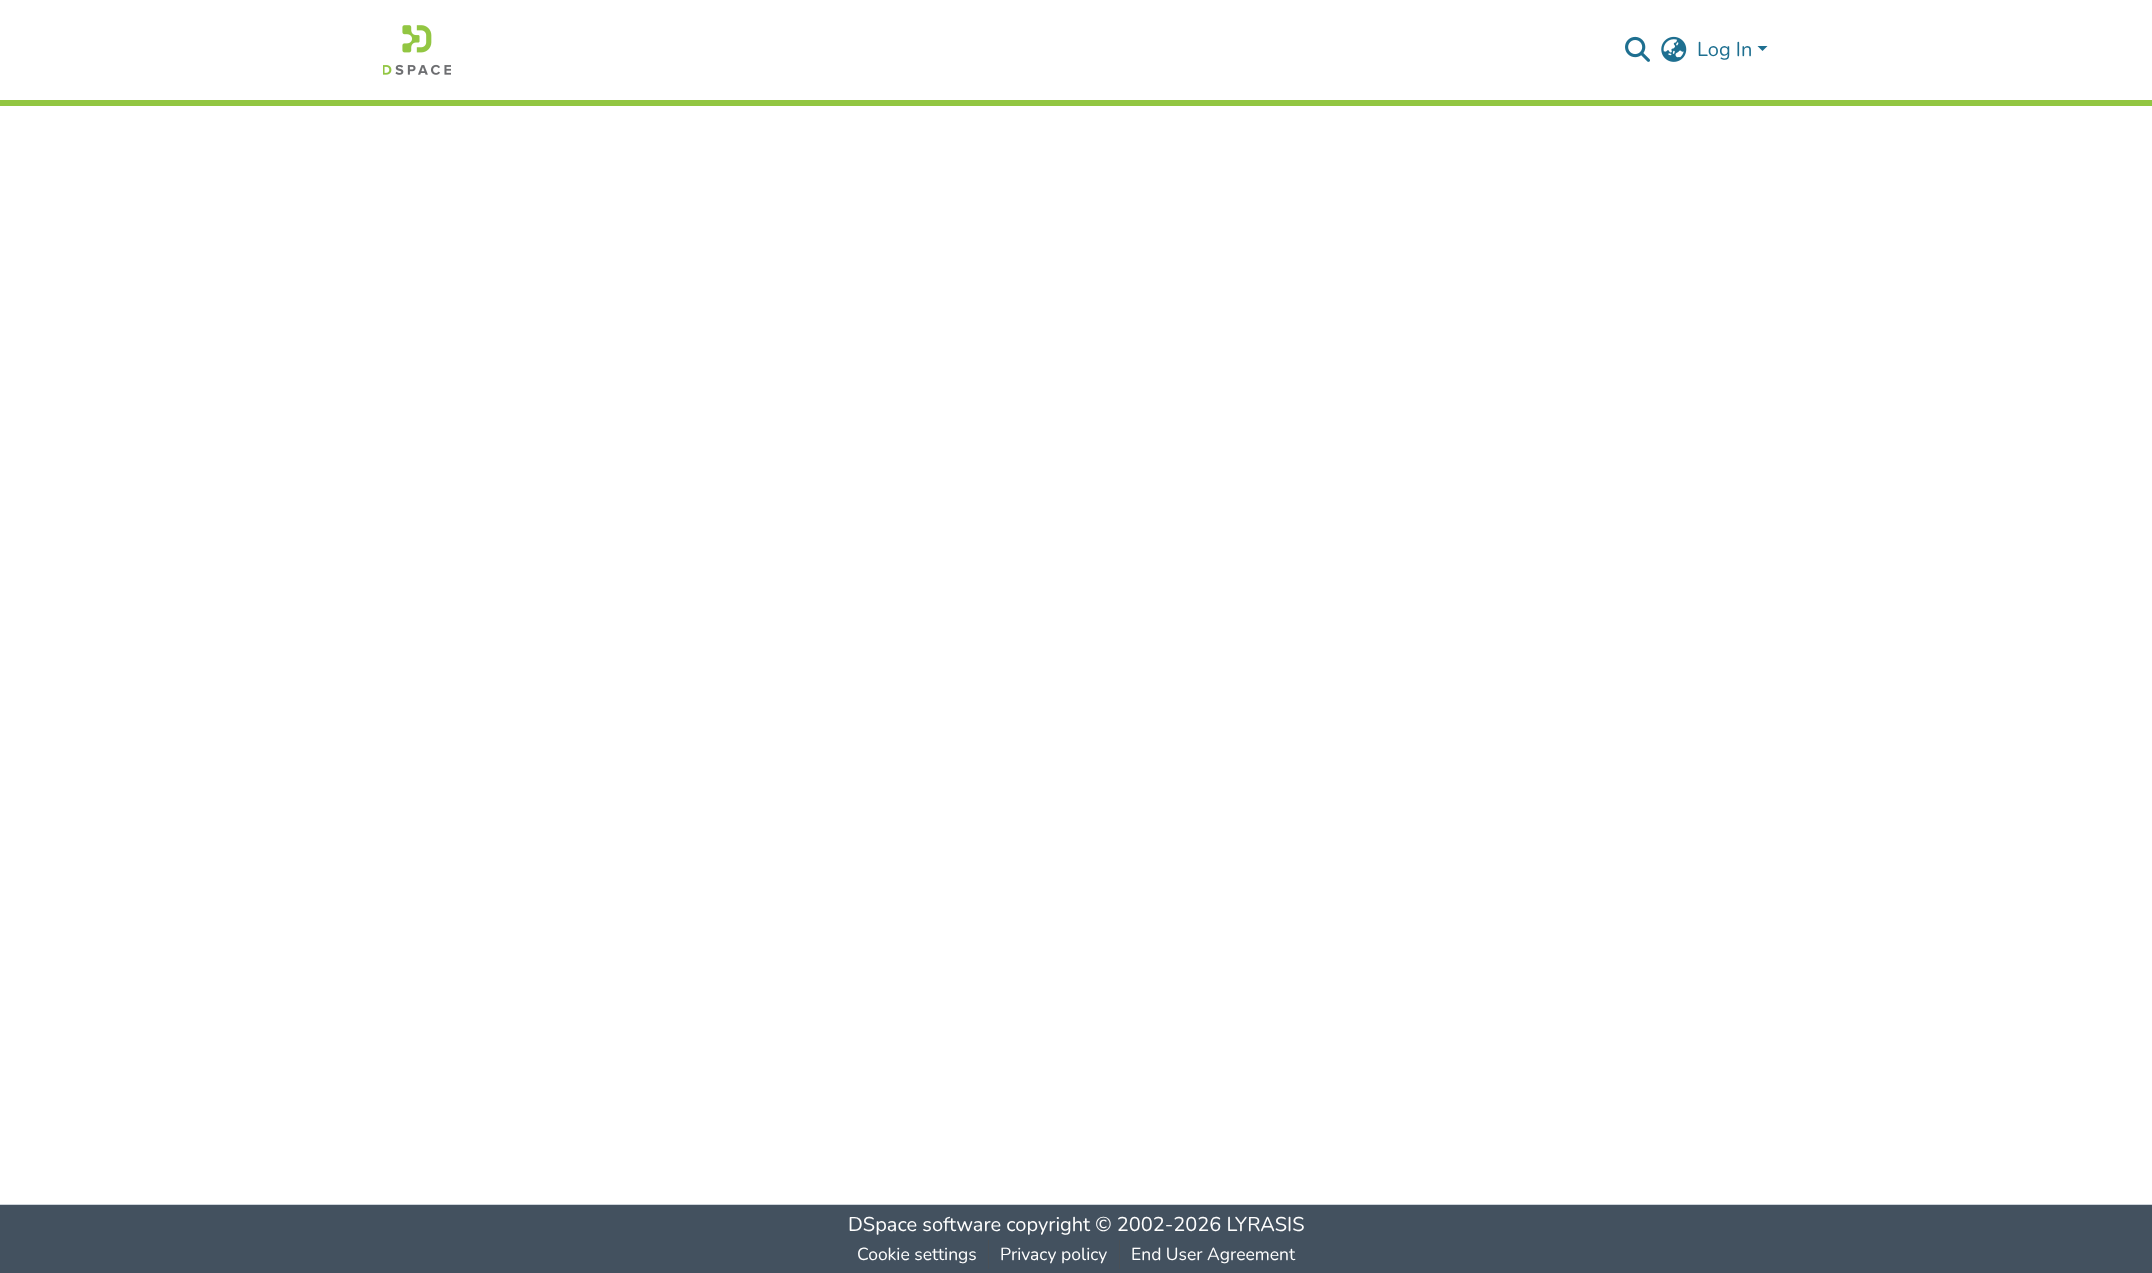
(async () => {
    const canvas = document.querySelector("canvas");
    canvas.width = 2152;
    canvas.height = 1273;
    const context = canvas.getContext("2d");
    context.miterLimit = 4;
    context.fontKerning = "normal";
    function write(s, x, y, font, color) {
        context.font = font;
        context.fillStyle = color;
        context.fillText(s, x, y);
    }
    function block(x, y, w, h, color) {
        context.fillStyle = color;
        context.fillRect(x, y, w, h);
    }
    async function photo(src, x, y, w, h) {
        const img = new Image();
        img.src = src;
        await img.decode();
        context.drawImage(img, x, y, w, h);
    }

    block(0, 0, 2152, 1273, "rgb(255, 255, 255)");
    block(0, 100, 2152, 6, "rgb(146, 198, 66)");
    await photo("media/1.png", 383, 25, 68, 50);
    await photo("media/2.png", 1625, 36, 25, 26);
    await photo("media/3.png", 1661, 36, 26, 26);
    write("Log In", 1697, 56, "20px Nunito", "rgb(30, 111, 144)");
    context.beginPath();
    context.moveTo(1757.5, 46);
    context.lineTo(1767.5, 46);
    context.lineTo(1762.5, 51);
    context.closePath();
    context.fill();
    block(0, 1205, 2152, 68, "rgb(67, 81, 95)");
    block(0, 1204, 2152, 1, "rgb(206, 212, 218)");
    write("DSpace software copyright © 2002-2026 LYRASIS", 848, 1231, "20px Nunito", "rgb(255, 255, 255)");
    write("Cookie settings", 857, 1260, "17.5px Nunito", "rgb(255, 255, 255)");
    block(988, 1240, 1, 29, "rgb(73, 80, 87)");
    write("Privacy policy", 1000, 1260, "17.5px Nunito", "rgb(255, 255, 255)");
    block(1119, 1240, 1, 29, "rgb(73, 80, 87)");
    write("End User Agreement", 1131, 1260, "17.5px Nunito", "rgb(255, 255, 255)");
})();
